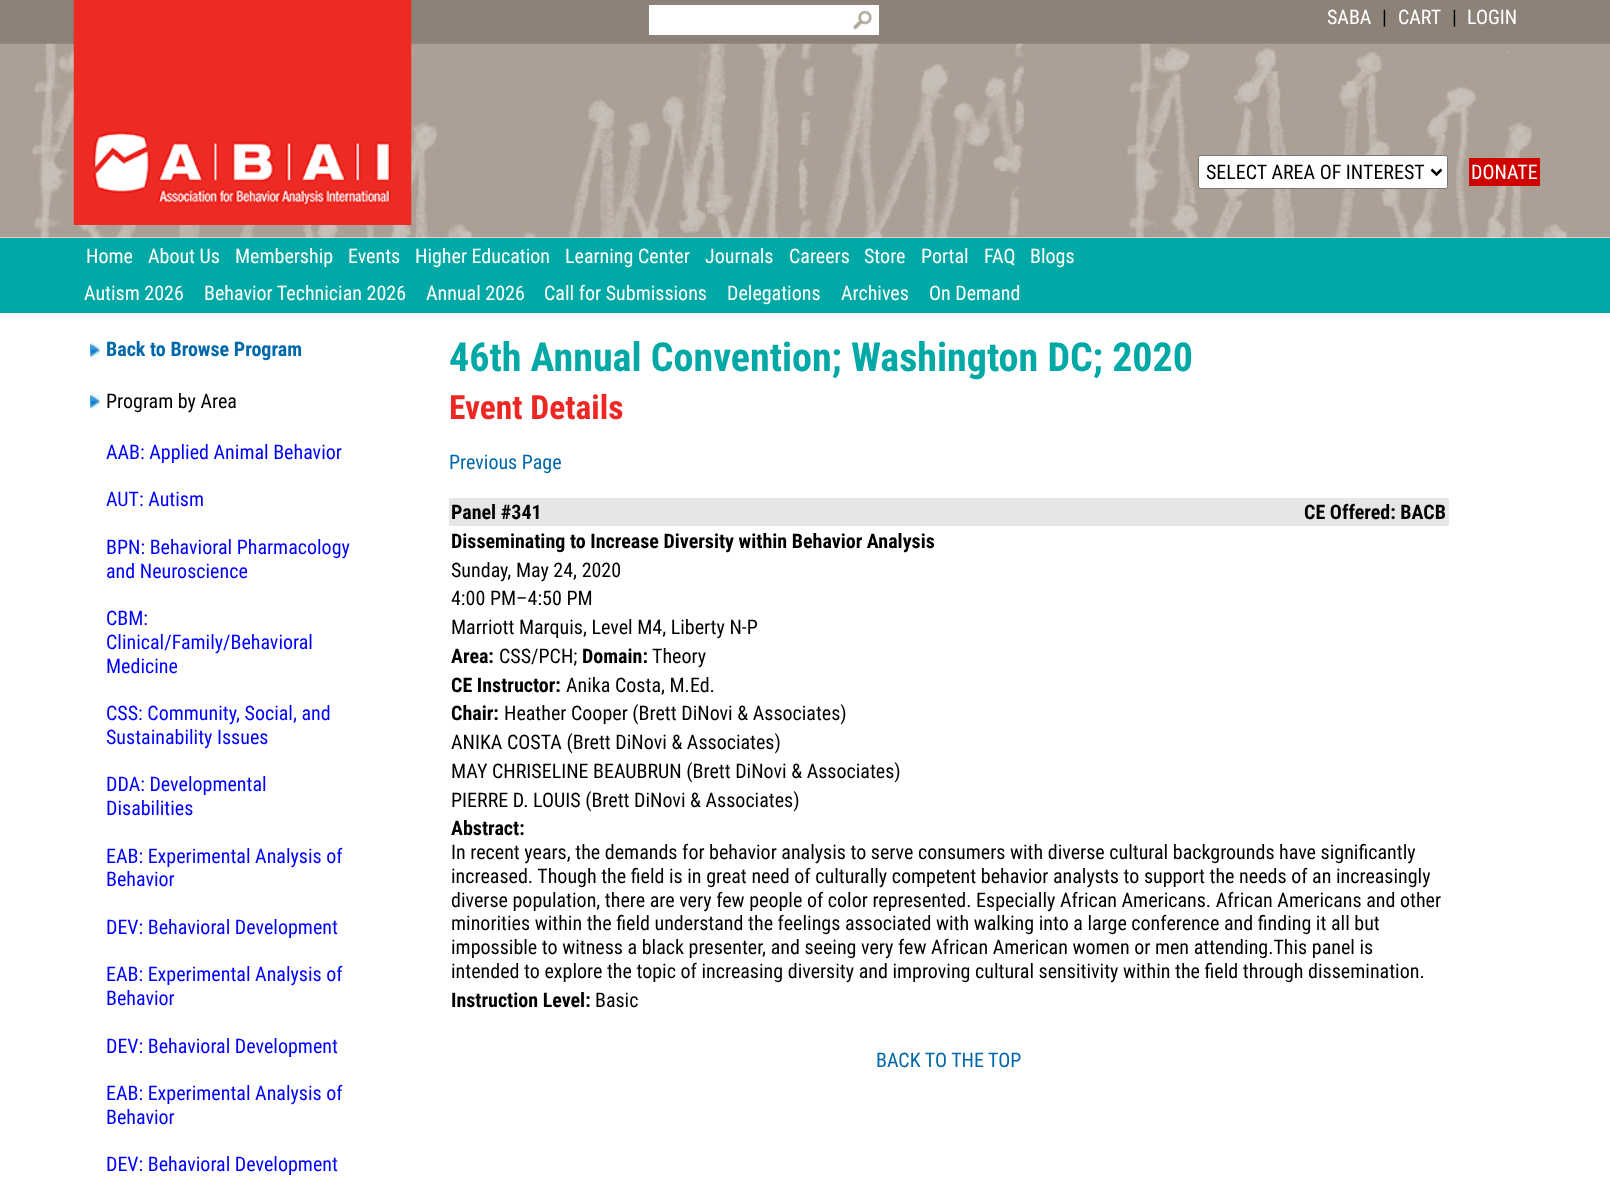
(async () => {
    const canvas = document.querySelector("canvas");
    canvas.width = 1610;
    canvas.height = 1188;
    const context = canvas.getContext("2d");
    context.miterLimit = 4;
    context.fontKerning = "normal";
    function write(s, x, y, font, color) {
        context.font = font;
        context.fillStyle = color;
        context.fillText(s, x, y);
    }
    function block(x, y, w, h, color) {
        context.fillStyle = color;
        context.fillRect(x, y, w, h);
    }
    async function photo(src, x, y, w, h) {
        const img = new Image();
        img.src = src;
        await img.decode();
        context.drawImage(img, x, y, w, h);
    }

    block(0, 0, 1610, 1188, "rgb(255, 255, 255)");
    await photo("media/1.png", 0, 0, 1610, 238);
    await photo("media/2.png", 73, 0, 339, 225);
    block(649, 5, 230, 30, "rgb(255, 255, 255)");
    await photo("media/3.png", 852, 10, 21, 20);
    write("SABA", 1327, 24, "20px Roboto Condensed", "rgb(255, 255, 255)");
    write("|", 1382, 24, "20px Roboto Condensed", "rgb(0, 0, 0)");
    write("CART", 1398, 24, "20px Roboto Condensed", "rgb(255, 255, 255)");
    write("|", 1452, 24, "20px Roboto Condensed", "rgb(0, 0, 0)");
    write("LOGIN", 1467, 24, "20px Roboto Condensed", "rgb(255, 255, 255)");
    context.beginPath();
    context.roundRect(1198.5, 155.5, 249, 33, 2);
    context.fill();
    context.strokeStyle = "rgb(118, 118, 118)";
    context.stroke();
    context.beginPath();
    context.moveTo(1431.5, 169.5);
    context.lineTo(1436.5, 174.5);
    context.lineTo(1441.5, 169.5);
    context.strokeStyle = "rgb(0, 0, 0)";
    context.lineWidth = 2.5;
    context.stroke();
    write("SELECT AREA OF INTEREST", 1206, 179, "20px Roboto Condensed", "rgb(0, 0, 0)");
    block(1469, 158, 71, 28, "rgb(206, 1, 0)");
    write("DONATE", 1471, 179, "20px Roboto Condensed", "rgb(255, 255, 255)");
    block(0, 238, 1610, 75, "rgb(0, 169, 165)");
    write("Home", 86, 263, "20px Roboto Condensed", "rgb(255, 255, 255)");
    write("About Us", 148, 263, "20px Roboto Condensed", "rgb(255, 255, 255)");
    write("Membership", 235, 263, "20px Roboto Condensed", "rgb(255, 255, 255)");
    write("Events", 348, 263, "20px Roboto Condensed", "rgb(255, 255, 255)");
    write("Higher Education", 415, 263, "20px Roboto Condensed", "rgb(255, 255, 255)");
    write("Learning Center", 565, 263, "20px Roboto Condensed", "rgb(255, 255, 255)");
    write("Journals", 705, 263, "20px Roboto Condensed", "rgb(255, 255, 255)");
    write("Careers", 789, 263, "20px Roboto Condensed", "rgb(255, 255, 255)");
    write("Store", 864, 263, "20px Roboto Condensed", "rgb(255, 255, 255)");
    write("Portal", 921, 263, "20px Roboto Condensed", "rgb(255, 255, 255)");
    write("FAQ", 984, 263, "20px Roboto Condensed", "rgb(255, 255, 255)");
    write("Blogs", 1030, 263, "20px Roboto Condensed", "rgb(255, 255, 255)");
    write("Autism 2026", 84, 300, "20px Roboto Condensed", "rgb(255, 255, 255)");
    write("Behavior Technician 2026", 204, 300, "20px Roboto Condensed", "rgb(255, 255, 255)");
    write("Annual 2026", 426, 300, "20px Roboto Condensed", "rgb(255, 255, 255)");
    write("Call for Submissions", 544, 300, "20px Roboto Condensed", "rgb(255, 255, 255)");
    write("Delegations", 727, 300, "20px Roboto Condensed", "rgb(255, 255, 255)");
    write("Archives", 841, 300, "20px Roboto Condensed", "rgb(255, 255, 255)");
    write("On Demand", 929, 300, "20px Roboto Condensed", "rgb(255, 255, 255)");
    await photo("media/4.png", 90, 341, 10, 18);
    write("Back to Browse Program", 106, 356, "bold 20px Roboto Condensed", "rgb(0, 104, 170)");
    await photo("media/5.png", 90, 392, 10, 18);
    write("Program by Area", 106, 408, "20px Roboto Condensed", "rgb(0, 0, 0)");
    write("AAB: Applied Animal Behavior", 106, 459, "20px Roboto Condensed", "rgb(0, 0, 255)");
    write("AUT: Autism", 106, 506, "20px Roboto Condensed", "rgb(0, 0, 255)");
    write("BPN: Behavioral Pharmacology", 106, 554, "20px Roboto Condensed", "rgb(0, 0, 255)");
    write("and Neuroscience", 106, 578, "20px Roboto Condensed", "rgb(0, 0, 255)");
    write("CBM:", 106, 625, "20px Roboto Condensed", "rgb(0, 0, 255)");
    write("Clinical/Family/Behavioral", 106, 649, "20px Roboto Condensed", "rgb(0, 0, 255)");
    write("Medicine", 106, 673, "20px Roboto Condensed", "rgb(0, 0, 255)");
    write("CSS: Community, Social, and", 106, 720, "20px Roboto Condensed", "rgb(0, 0, 255)");
    write("Sustainability Issues", 106, 744, "20px Roboto Condensed", "rgb(0, 0, 255)");
    write("DDA: Developmental", 106, 791, "20px Roboto Condensed", "rgb(0, 0, 255)");
    write("Disabilities", 106, 815, "20px Roboto Condensed", "rgb(0, 0, 255)");
    write("EAB: Experimental Analysis of", 106, 863, "20px Roboto Condensed", "rgb(0, 0, 255)");
    write("Behavior", 106, 886, "20px Roboto Condensed", "rgb(0, 0, 255)");
    write("DEV: Behavioral Development", 106, 934, "20px Roboto Condensed", "rgb(0, 0, 255)");
    write("EAB: Experimental Analysis of", 106, 981, "20px Roboto Condensed", "rgb(0, 0, 255)");
    write("Behavior", 106, 1005, "20px Roboto Condensed", "rgb(0, 0, 255)");
    write("DEV: Behavioral Development", 106, 1053, "20px Roboto Condensed", "rgb(0, 0, 255)");
    write("EAB: Experimental Analysis of", 106, 1100, "20px Roboto Condensed", "rgb(0, 0, 255)");
    write("Behavior", 106, 1124, "20px Roboto Condensed", "rgb(0, 0, 255)");
    write("DEV: Behavioral Development", 106, 1171, "20px Roboto Condensed", "rgb(0, 0, 255)");
    write("46th Annual Convention; Washington DC; 2020", 449, 371, "bold 40px Roboto Condensed", "rgb(0, 169, 166)");
    write("Event Details", 449, 419, "bold 33.5px Roboto Condensed", "rgb(237, 39, 36)");
    write("Previous Page", 449, 469, "20px Roboto Condensed", "rgb(0, 104, 170)");
    block(449, 498, 1000, 28, "rgb(231, 230, 228)");
    write("Panel #341", 451, 519, "bold 20px Roboto Condensed", "rgb(0, 0, 0)");
    write("CE Offered: BACB", 1304, 519, "bold 20px Roboto Condensed", "rgb(0, 0, 0)");
    write("Disseminating to Increase Diversity within Behavior Analysis", 451, 548, "bold 20px Roboto Condensed", "rgb(0, 0, 0)");
    write("Sunday, May 24, 2020", 451, 577, "20px Roboto Condensed", "rgb(0, 0, 0)");
    write("4:00 PM–4:50 PM", 451, 605, "20px Roboto Condensed", "rgb(0, 0, 0)");
    write("Marriott Marquis, Level M4, Liberty N-P", 451, 634, "20px Roboto Condensed", "rgb(0, 0, 0)");
    write("Area:", 451, 663, "bold 20px Roboto Condensed", "rgb(0, 0, 0)");
    write("CSS/PCH;", 499, 663, "20px Roboto Condensed", "rgb(0, 0, 0)");
    write("Domain:", 582, 663, "bold 20px Roboto Condensed", "rgb(0, 0, 0)");
    write("Theory", 652, 663, "20px Roboto Condensed", "rgb(0, 0, 0)");
    write("CE Instructor:", 451, 692, "bold 20px Roboto Condensed", "rgb(0, 0, 0)");
    write("Anika Costa, M.Ed.", 566, 692, "20px Roboto Condensed", "rgb(0, 0, 0)");
    write("Chair:", 451, 720, "bold 20px Roboto Condensed", "rgb(0, 0, 0)");
    write("Heather Cooper (Brett DiNovi & Associates)", 504, 720, "20px Roboto Condensed", "rgb(0, 0, 0)");
    write("ANIKA COSTA (Brett DiNovi & Associates)", 451, 749, "20px Roboto Condensed", "rgb(0, 0, 0)");
    write("MAY CHRISELINE BEAUBRUN (Brett DiNovi & Associates)", 451, 778, "20px Roboto Condensed", "rgb(0, 0, 0)");
    write("PIERRE D. LOUIS (Brett DiNovi & Associates)", 451, 807, "20px Roboto Condensed", "rgb(0, 0, 0)");
    write("Abstract:", 451, 835, "bold 20px Roboto Condensed", "rgb(0, 0, 0)");
    write("In recent years, the demands for behavior analysis to serve consumers with diverse cultural backgrounds have significantly", 451, 859, "20px Roboto Condensed", "rgb(0, 0, 0)");
    write("increased. Though the field is in great need of culturally competent behavior analysts to support the needs of an increasingly", 451, 883, "20px Roboto Condensed", "rgb(0, 0, 0)");
    write("diverse population, there are very few people of color represented. Especially African Americans. African Americans and other", 451, 907, "20px Roboto Condensed", "rgb(0, 0, 0)");
    write("minorities within the field understand the feelings associated with walking into a large conference and finding it all but", 451, 930, "20px Roboto Condensed", "rgb(0, 0, 0)");
    write("impossible to witness a black presenter, and seeing very few African American women or men attending.This panel is", 451, 954, "20px Roboto Condensed", "rgb(0, 0, 0)");
    write("intended to explore the topic of increasing diversity and improving cultural sensitivity within the field through dissemination.", 451, 978, "20px Roboto Condensed", "rgb(0, 0, 0)");
    write("Instruction Level:", 451, 1007, "bold 20px Roboto Condensed", "rgb(0, 0, 0)");
    write("Basic", 595, 1007, "20px Roboto Condensed", "rgb(0, 0, 0)");
    write("BACK TO THE TOP", 876, 1067, "20px Roboto Condensed", "rgb(0, 104, 170)");
})();
